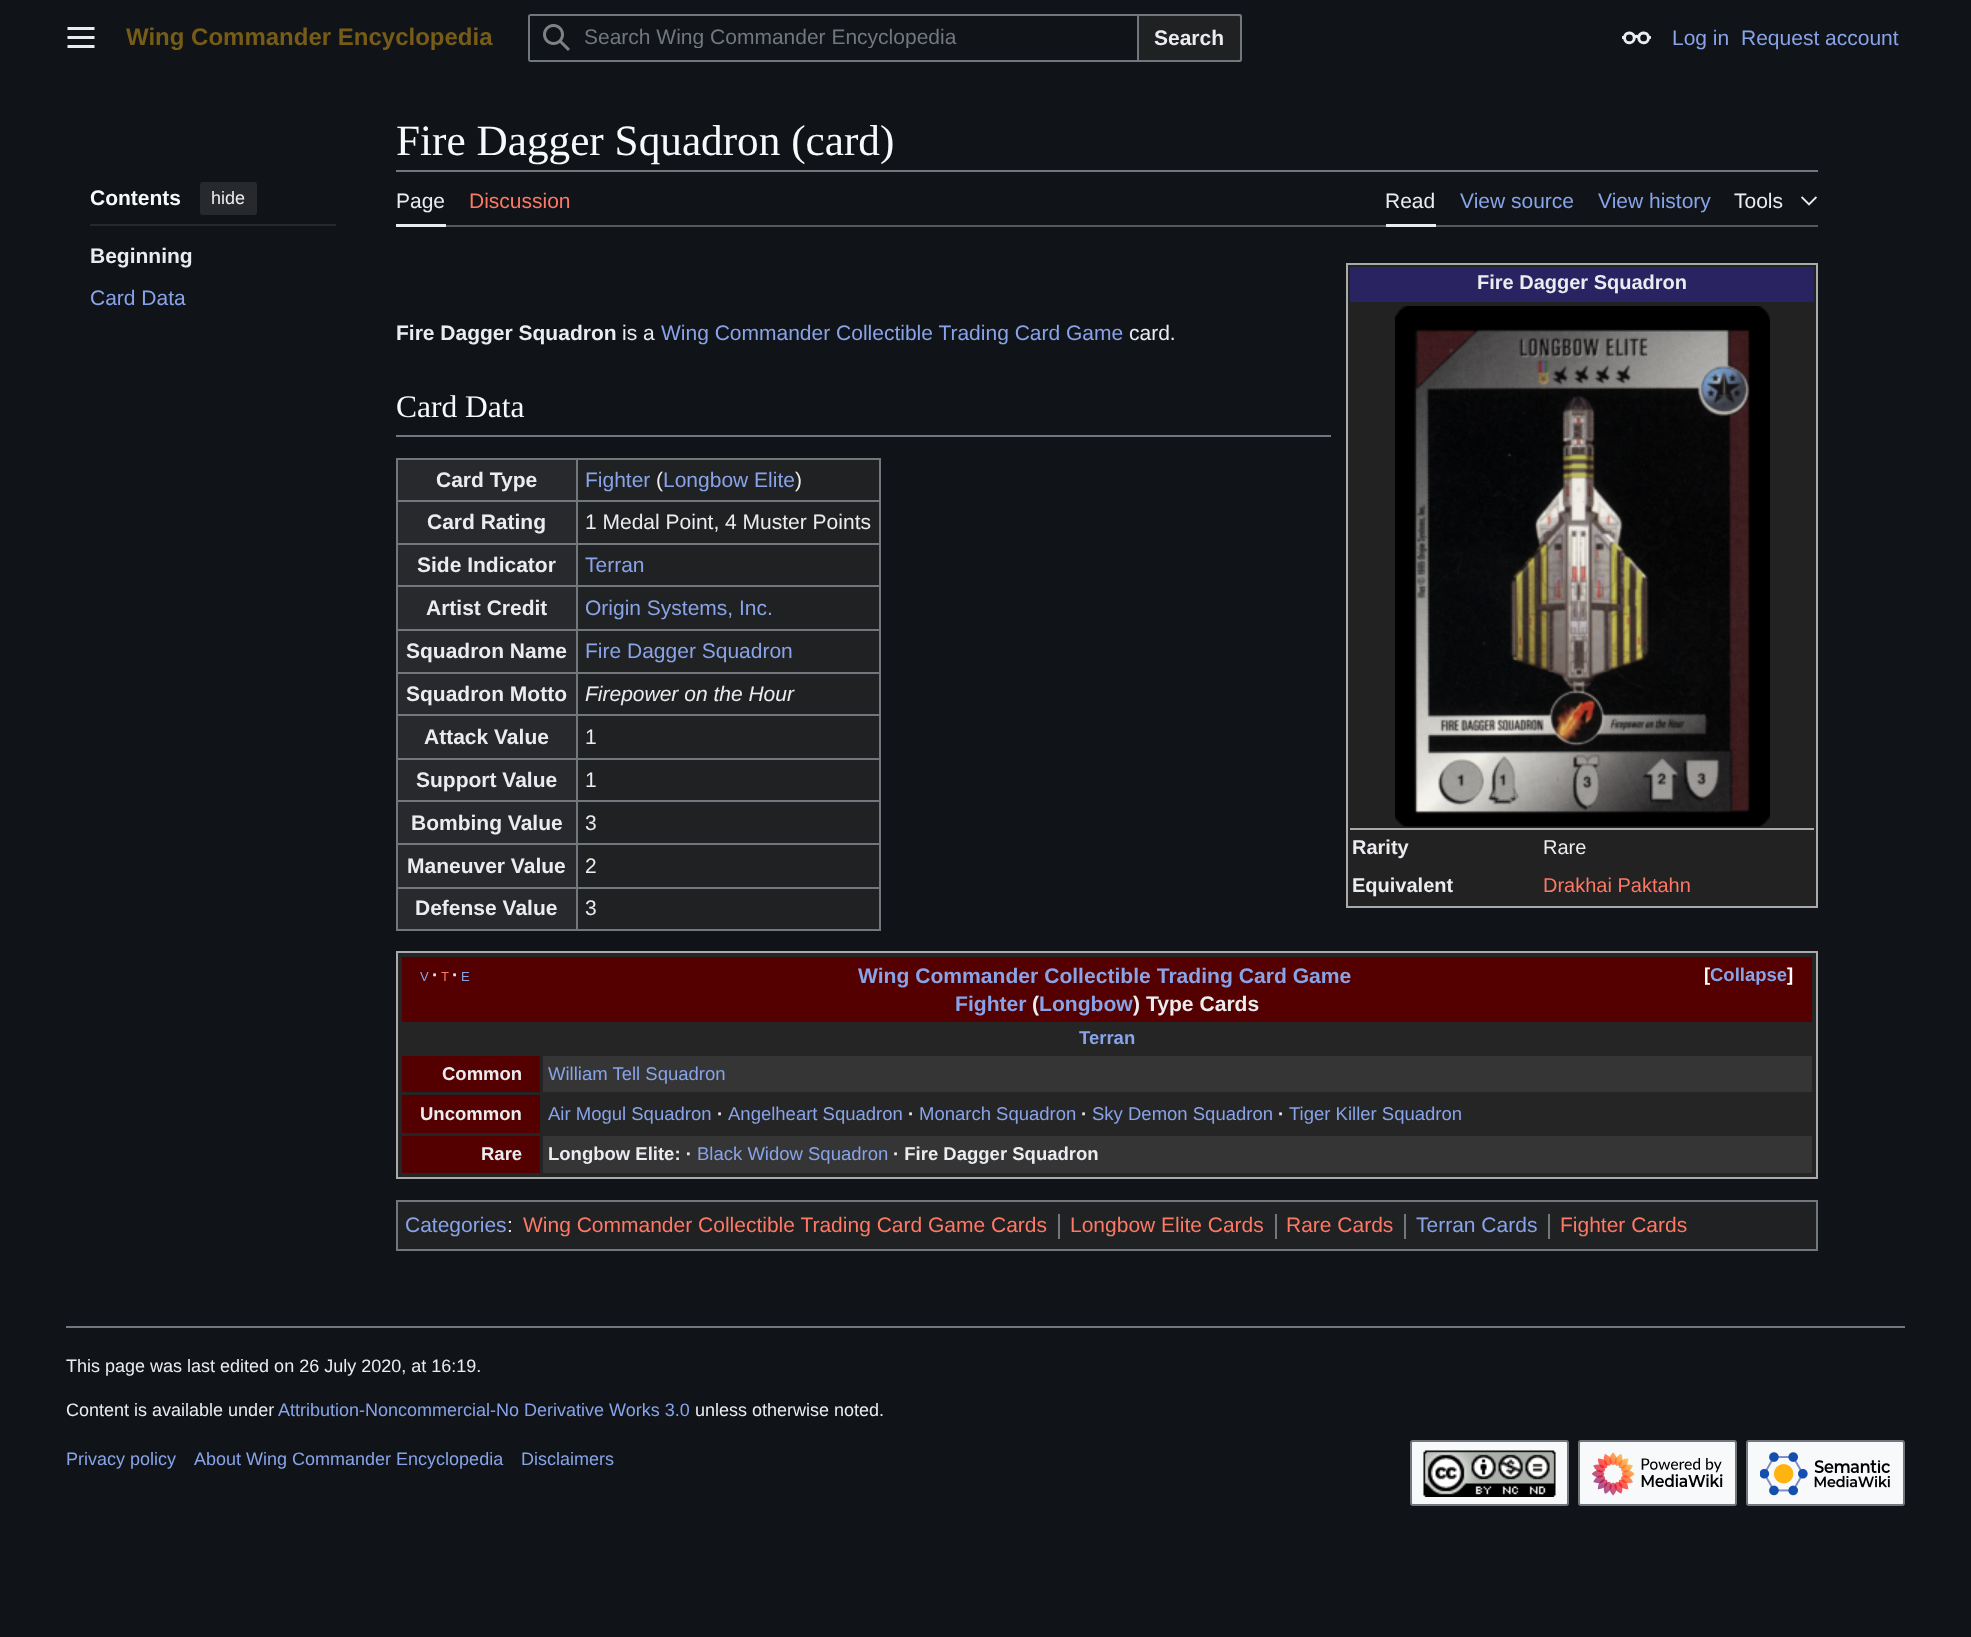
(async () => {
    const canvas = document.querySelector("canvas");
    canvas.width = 1971;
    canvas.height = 1637;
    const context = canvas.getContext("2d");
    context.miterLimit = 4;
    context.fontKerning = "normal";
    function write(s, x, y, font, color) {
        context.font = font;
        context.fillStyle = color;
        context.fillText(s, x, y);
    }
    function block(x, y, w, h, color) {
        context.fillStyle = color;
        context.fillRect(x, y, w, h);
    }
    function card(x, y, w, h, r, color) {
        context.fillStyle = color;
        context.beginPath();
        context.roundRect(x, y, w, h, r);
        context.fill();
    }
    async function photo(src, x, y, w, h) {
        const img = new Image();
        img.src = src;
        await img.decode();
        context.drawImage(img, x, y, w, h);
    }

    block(0, 0, 1971, 1637, "rgb(16, 20, 24)");
    await photo("media/1.png", 67, 27, 28, 21);
    write("Wing Commander Encyclopedia", 126, 45, "bold 24px Liberation Sans", "rgb(119, 92, 23)");
    context.beginPath();
    context.roundRect(529, 15, 712, 46, 2);
    context.strokeStyle = "rgb(114, 119, 125)";
    context.lineWidth = 2;
    context.stroke();
    context.fillStyle = "rgb(32, 33, 34)";
    context.beginPath();
    context.roundRect(1138, 15, 103, 46, [0, 2, 2, 0]);
    context.fill();
    context.stroke();
    context.fillStyle = "rgb(16, 20, 24)";
    context.beginPath();
    context.roundRect(528, 14, 611, 48, [3, 0, 0, 3]);
    context.fill();
    context.fillStyle = "rgb(114, 119, 125)";
    context.beginPath();
    context.moveTo(531, 14);
    context.bezierCurveTo(529, 14, 528, 15, 528, 17);
    context.lineTo(528, 59);
    context.bezierCurveTo(528, 61, 529, 62, 531, 62);
    context.lineTo(1139, 62);
    context.lineTo(1139, 14);
    context.closePath();
    context.moveTo(530, 16);
    context.lineTo(530, 60);
    context.lineTo(1137, 60);
    context.lineTo(1137, 16);
    context.closePath();
    context.fill("evenodd");
    await photo("media/2.png", 543, 24, 27, 27);
    context.save();
    context.beginPath();
    context.rect(584, 24, 541, 24);
    context.clip();
    write("Search Wing Commander Encyclopedia", 584, 44, "21px Liberation Sans", "rgb(114, 119, 125)");
    context.restore();
    write("Search", 1154, 45, "bold 21px Liberation Sans", "rgb(234, 236, 240)");
    await photo("media/3.png", 1622, 31, 30, 14);
    write("Log in", 1672, 45, "21px Liberation Sans", "rgb(136, 163, 232)");
    write("Request account", 1741, 45, "21px Liberation Sans", "rgb(136, 163, 232)");
    block(90, 224, 246, 2, "rgb(39, 41, 45)");
    write("Contents", 90, 205, "bold 21px Liberation Sans", "rgb(248, 249, 250)");
    card(200, 182, 57, 33, 3, "rgb(39, 41, 45)");
    write("hide", 211, 204, "18px Liberation Sans", "rgb(234, 236, 240)");
    write("Beginning", 90, 263, "bold 21px Liberation Sans", "rgb(234, 236, 240)");
    write("Card Data", 90, 305, "21px Liberation Sans", "rgb(136, 163, 232)");
    write("Fire Dagger Squadron (card)", 396, 155, "43.25px Liberation Serif", "rgb(248, 249, 250)");
    block(396, 170, 1422, 2, "rgb(114, 119, 125)");
    block(446, 225, 1372, 2, "rgb(84, 89, 93)");
    block(396, 224, 50, 3, "rgb(234, 236, 240)");
    write("Page", 396, 208, "21px Liberation Sans", "rgb(234, 236, 240)");
    write("Discussion", 469, 208, "21px Liberation Sans", "rgb(253, 120, 101)");
    block(1386, 224, 50, 3, "rgb(234, 236, 240)");
    write("Read", 1385, 208, "21px Liberation Sans", "rgb(234, 236, 240)");
    write("View source", 1460, 208, "21px Liberation Sans", "rgb(136, 163, 232)");
    write("View history", 1598, 208, "21px Liberation Sans", "rgb(136, 163, 232)");
    write("Tools", 1734, 208, "21px Liberation Sans", "rgb(234, 236, 240)");
    await photo("media/4.png", 1801, 196, 16, 10);
    write("Fire Dagger Squadron", 396, 340, "bold 21px Liberation Sans", "rgb(234, 236, 240)");
    write("is a", 622, 340, "21px Liberation Sans", "rgb(234, 236, 240)");
    write("Wing Commander Collectible Trading Card Game", 661, 340, "21px Liberation Sans", "rgb(136, 163, 232)");
    write("card.", 1129, 340, "21px Liberation Sans", "rgb(234, 236, 240)");
    context.fillStyle = "rgb(34, 34, 34)";
    context.beginPath();
    context.rect(1347, 264, 470, 643);
    context.fill();
    context.strokeStyle = "rgb(170, 170, 170)";
    context.stroke();
    block(1350, 267, 464, 35, "rgb(41, 36, 97)");
    write("Fire Dagger Squadron", 1477, 289, "bold 20px Liberation Sans", "rgb(234, 236, 240)");
    block(1350, 828, 464, 2, "rgb(170, 170, 170)");
    await photo("media/5.png", 1395, 306, 375, 521);
    write("Rarity", 1352, 854, "bold 20px Liberation Sans", "rgb(234, 236, 240)");
    write("Rare", 1543, 854, "20px Liberation Sans", "rgb(234, 236, 240)");
    write("Equivalent", 1352, 892, "bold 20px Liberation Sans", "rgb(234, 236, 240)");
    write("Drakhai Paktahn", 1543, 892, "20px Liberation Sans", "rgb(253, 120, 101)");
    block(396, 435, 935, 2, "rgb(114, 119, 125)");
    write("Card Data", 396, 417, "31.5px Liberation Serif", "rgb(248, 249, 250)");
    block(578, 460, 301, 469, "rgb(32, 33, 34)");
    block(396, 458, 485, 2, "rgb(114, 119, 125)");
    block(879, 458, 2, 472, "rgb(114, 119, 125)");
    block(396, 929, 485, 2, "rgb(114, 119, 125)");
    block(396, 458, 2, 472, "rgb(114, 119, 125)");
    block(398, 460, 178, 40, "rgb(39, 41, 45)");
    write("Card Type", 436, 487, "bold 21px Liberation Sans", "rgb(234, 236, 240)");
    block(576, 500, 305, 2, "rgb(114, 119, 125)");
    block(576, 543, 305, 2, "rgb(114, 119, 125)");
    block(576, 585, 305, 2, "rgb(114, 119, 125)");
    block(576, 629, 305, 2, "rgb(114, 119, 125)");
    block(576, 672, 305, 2, "rgb(114, 119, 125)");
    block(576, 714, 305, 2, "rgb(114, 119, 125)");
    block(576, 758, 305, 2, "rgb(114, 119, 125)");
    block(576, 800, 305, 2, "rgb(114, 119, 125)");
    block(576, 843, 305, 2, "rgb(114, 119, 125)");
    block(576, 887, 305, 2, "rgb(114, 119, 125)");
    block(576, 887, 2, 43, "rgb(114, 119, 125)");
    block(396, 887, 182, 2, "rgb(114, 119, 125)");
    block(576, 843, 2, 45, "rgb(114, 119, 125)");
    block(396, 843, 182, 2, "rgb(114, 119, 125)");
    block(576, 800, 2, 45, "rgb(114, 119, 125)");
    block(396, 800, 182, 2, "rgb(114, 119, 125)");
    block(576, 758, 2, 43, "rgb(114, 119, 125)");
    block(396, 758, 182, 2, "rgb(114, 119, 125)");
    block(576, 714, 2, 45, "rgb(114, 119, 125)");
    block(396, 714, 182, 2, "rgb(114, 119, 125)");
    block(576, 672, 2, 44, "rgb(114, 119, 125)");
    block(396, 672, 182, 2, "rgb(114, 119, 125)");
    block(576, 629, 2, 45, "rgb(114, 119, 125)");
    block(396, 629, 182, 2, "rgb(114, 119, 125)");
    block(576, 585, 2, 45, "rgb(114, 119, 125)");
    block(396, 585, 182, 2, "rgb(114, 119, 125)");
    block(576, 543, 2, 44, "rgb(114, 119, 125)");
    block(396, 543, 182, 2, "rgb(114, 119, 125)");
    block(576, 500, 2, 45, "rgb(114, 119, 125)");
    block(396, 500, 182, 2, "rgb(114, 119, 125)");
    block(576, 458, 2, 43, "rgb(114, 119, 125)");
    write("Fighter", 585, 487, "21px Liberation Sans", "rgb(136, 163, 232)");
    write("(", 656, 487, "21px Liberation Sans", "rgb(234, 236, 240)");
    write("Longbow Elite", 663, 487, "21px Liberation Sans", "rgb(136, 163, 232)");
    write(")", 795, 487, "21px Liberation Sans", "rgb(234, 236, 240)");
    block(398, 502, 178, 41, "rgb(39, 41, 45)");
    write("Card Rating", 427, 529, "bold 21px Liberation Sans", "rgb(234, 236, 240)");
    write("1 Medal Point, 4 Muster Points", 585, 529, "21px Liberation Sans", "rgb(234, 236, 240)");
    block(398, 545, 178, 40, "rgb(39, 41, 45)");
    write("Side Indicator", 417, 572, "bold 21px Liberation Sans", "rgb(234, 236, 240)");
    write("Terran", 585, 572, "21px Liberation Sans", "rgb(136, 163, 232)");
    block(398, 587, 178, 42, "rgb(39, 41, 45)");
    write("Artist Credit", 426, 615, "bold 21px Liberation Sans", "rgb(234, 236, 240)");
    write("Origin Systems, Inc.", 585, 615, "21px Liberation Sans", "rgb(136, 163, 232)");
    block(398, 631, 178, 41, "rgb(39, 41, 45)");
    write("Squadron Name", 406, 658, "bold 21px Liberation Sans", "rgb(234, 236, 240)");
    write("Fire Dagger Squadron", 585, 658, "21px Liberation Sans", "rgb(136, 163, 232)");
    block(398, 674, 178, 40, "rgb(39, 41, 45)");
    write("Squadron Motto", 406, 701, "bold 21px Liberation Sans", "rgb(234, 236, 240)");
    write("Firepower on the Hour", 585, 701, "italic 21px Liberation Sans", "rgb(234, 236, 240)");
    block(398, 716, 178, 42, "rgb(39, 41, 45)");
    write("Attack Value", 424, 744, "bold 21px Liberation Sans", "rgb(234, 236, 240)");
    write("1", 585, 744, "21px Liberation Sans", "rgb(234, 236, 240)");
    block(398, 760, 178, 40, "rgb(39, 41, 45)");
    write("Support Value", 416, 787, "bold 21px Liberation Sans", "rgb(234, 236, 240)");
    write("1", 585, 787, "21px Liberation Sans", "rgb(234, 236, 240)");
    block(398, 802, 178, 41, "rgb(39, 41, 45)");
    write("Bombing Value", 411, 830, "bold 21px Liberation Sans", "rgb(234, 236, 240)");
    write("3", 585, 830, "21px Liberation Sans", "rgb(234, 236, 240)");
    block(398, 845, 178, 42, "rgb(39, 41, 45)");
    write("Maneuver Value", 407, 873, "bold 21px Liberation Sans", "rgb(234, 236, 240)");
    write("2", 585, 873, "21px Liberation Sans", "rgb(234, 236, 240)");
    block(398, 889, 178, 40, "rgb(39, 41, 45)");
    write("Defense Value", 415, 915, "bold 21px Liberation Sans", "rgb(234, 236, 240)");
    write("3", 585, 915, "21px Liberation Sans", "rgb(234, 236, 240)");
    context.fillStyle = "rgb(37, 37, 37)";
    context.beginPath();
    context.rect(397, 952, 1420, 226);
    context.fill();
    context.stroke();
    block(402, 957, 1410, 65, "rgb(85, 0, 0)");
    write("V", 420, 981, "13px Liberation Sans", "rgb(136, 163, 232)");
    write("·", 432, 981, "bold 18.5px Liberation Sans", "rgb(234, 236, 240)");
    write("T", 441, 981, "13px Liberation Sans", "rgb(253, 120, 101)");
    write("·", 452, 981, "bold 18.5px Liberation Sans", "rgb(234, 236, 240)");
    write("E", 461, 981, "13px Liberation Sans", "rgb(136, 163, 232)");
    write("Wing Commander Collectible Trading Card Game", 858, 983, "bold 21.1px Liberation Sans", "rgb(136, 163, 232)");
    write("Fighter", 955, 1011, "bold 21.1px Liberation Sans", "rgb(136, 163, 232)");
    write("(", 1032, 1011, "bold 21.1px Liberation Sans", "rgb(234, 236, 240)");
    write("Longbow", 1039, 1011, "bold 21.1px Liberation Sans", "rgb(136, 163, 232)");
    write(") Type Cards", 1133, 1011, "bold 21.1px Liberation Sans", "rgb(234, 236, 240)");
    write("[", 1704, 981, "bold 18.5px Liberation Sans", "rgb(255, 255, 255)");
    write("Collapse", 1710, 981, "bold 18.5px Liberation Sans", "rgb(136, 163, 232)");
    write("]", 1787, 981, "bold 18.5px Liberation Sans", "rgb(255, 255, 255)");
    write("Terran", 1079, 1044, "bold 18.5px Liberation Sans", "rgb(136, 163, 232)");
    block(402, 1056, 138, 36, "rgb(85, 0, 0)");
    write("Common", 442, 1080, "bold 18.5px Liberation Sans", "rgb(234, 236, 240)");
    block(543, 1056, 1269, 36, "rgb(53, 53, 53)");
    write("William Tell Squadron", 548, 1080, "18.5px Liberation Sans", "rgb(136, 163, 232)");
    block(402, 1095, 138, 38, "rgb(85, 0, 0)");
    write("Uncommon", 420, 1120, "bold 18.5px Liberation Sans", "rgb(234, 236, 240)");
    write("Air Mogul Squadron", 548, 1120, "18.5px Liberation Sans", "rgb(136, 163, 232)");
    write("·", 717, 1120, "bold 18.5px Liberation Sans", "rgb(234, 236, 240)");
    write("Angelheart Squadron", 728, 1120, "18.5px Liberation Sans", "rgb(136, 163, 232)");
    write("·", 908, 1120, "bold 18.5px Liberation Sans", "rgb(234, 236, 240)");
    write("Monarch Squadron", 919, 1120, "18.5px Liberation Sans", "rgb(136, 163, 232)");
    write("·", 1081, 1120, "bold 18.5px Liberation Sans", "rgb(234, 236, 240)");
    write("Sky Demon Squadron", 1092, 1120, "18.5px Liberation Sans", "rgb(136, 163, 232)");
    write("·", 1278, 1120, "bold 18.5px Liberation Sans", "rgb(234, 236, 240)");
    write("Tiger Killer Squadron", 1289, 1120, "18.5px Liberation Sans", "rgb(136, 163, 232)");
    block(402, 1136, 138, 37, "rgb(85, 0, 0)");
    write("Rare", 481, 1160, "bold 18.5px Liberation Sans", "rgb(234, 236, 240)");
    block(543, 1136, 1269, 37, "rgb(53, 53, 53)");
    write("Longbow Elite: ·", 548, 1160, "bold 18.5px Liberation Sans", "rgb(234, 236, 240)");
    write("Black Widow Squadron", 697, 1160, "18.5px Liberation Sans", "rgb(136, 163, 232)");
    write("· Fire Dagger Squadron", 893, 1160, "bold 18.5px Liberation Sans", "rgb(234, 236, 240)");
    context.fillStyle = "rgb(32, 33, 34)";
    context.beginPath();
    context.rect(397, 1201, 1420, 49);
    context.fill();
    context.strokeStyle = "rgb(114, 119, 125)";
    context.stroke();
    write("Categories", 405, 1232, "21px Liberation Sans", "rgb(136, 163, 232)");
    write(":", 507, 1232, "21px Liberation Sans", "rgb(234, 236, 240)");
    write("Wing Commander Collectible Trading Card Game Cards", 523, 1232, "21px Liberation Sans", "rgb(253, 120, 101)");
    block(1058, 1214, 2, 25, "rgb(114, 119, 125)");
    write("Longbow Elite Cards", 1070, 1232, "21px Liberation Sans", "rgb(253, 120, 101)");
    block(1275, 1214, 2, 25, "rgb(114, 119, 125)");
    write("Rare Cards", 1286, 1232, "21px Liberation Sans", "rgb(253, 120, 101)");
    block(1404, 1214, 2, 25, "rgb(114, 119, 125)");
    write("Terran Cards", 1416, 1232, "21px Liberation Sans", "rgb(136, 163, 232)");
    block(1548, 1214, 2, 25, "rgb(114, 119, 125)");
    write("Fighter Cards", 1560, 1232, "21px Liberation Sans", "rgb(253, 120, 101)");
    block(66, 1326, 1839, 2, "rgb(114, 119, 125)");
    write("This page was last edited on 26 July 2020, at 16:19.", 66, 1372, "18px Liberation Sans", "rgb(234, 236, 240)");
    write("Content is available under", 66, 1416, "18px Liberation Sans", "rgb(234, 236, 240)");
    write("Attribution-Noncommercial-No Derivative Works 3.0", 278, 1416, "18px Liberation Sans", "rgb(136, 163, 232)");
    write("unless otherwise noted.", 695, 1416, "18px Liberation Sans", "rgb(234, 236, 240)");
    write("Privacy policy", 66, 1465, "18px Liberation Sans", "rgb(136, 163, 232)");
    write("About Wing Commander Encyclopedia", 194, 1465, "18px Liberation Sans", "rgb(136, 163, 232)");
    write("Disclaimers", 521, 1465, "18px Liberation Sans", "rgb(136, 163, 232)");
    context.fillStyle = "rgb(248, 249, 250)";
    context.beginPath();
    context.roundRect(1411, 1441, 157, 64, 2);
    context.fill();
    context.stroke();
    await photo("media/6.png", 1423, 1450, 133, 47);
    context.beginPath();
    context.roundRect(1579, 1441, 157, 64, 2);
    context.fill();
    context.stroke();
    await photo("media/7.png", 1592, 1452, 131, 44);
    context.beginPath();
    context.roundRect(1747, 1441, 157, 64, 2);
    context.fill();
    context.stroke();
    await photo("media/8.png", 1760, 1452, 130, 44);
})();
